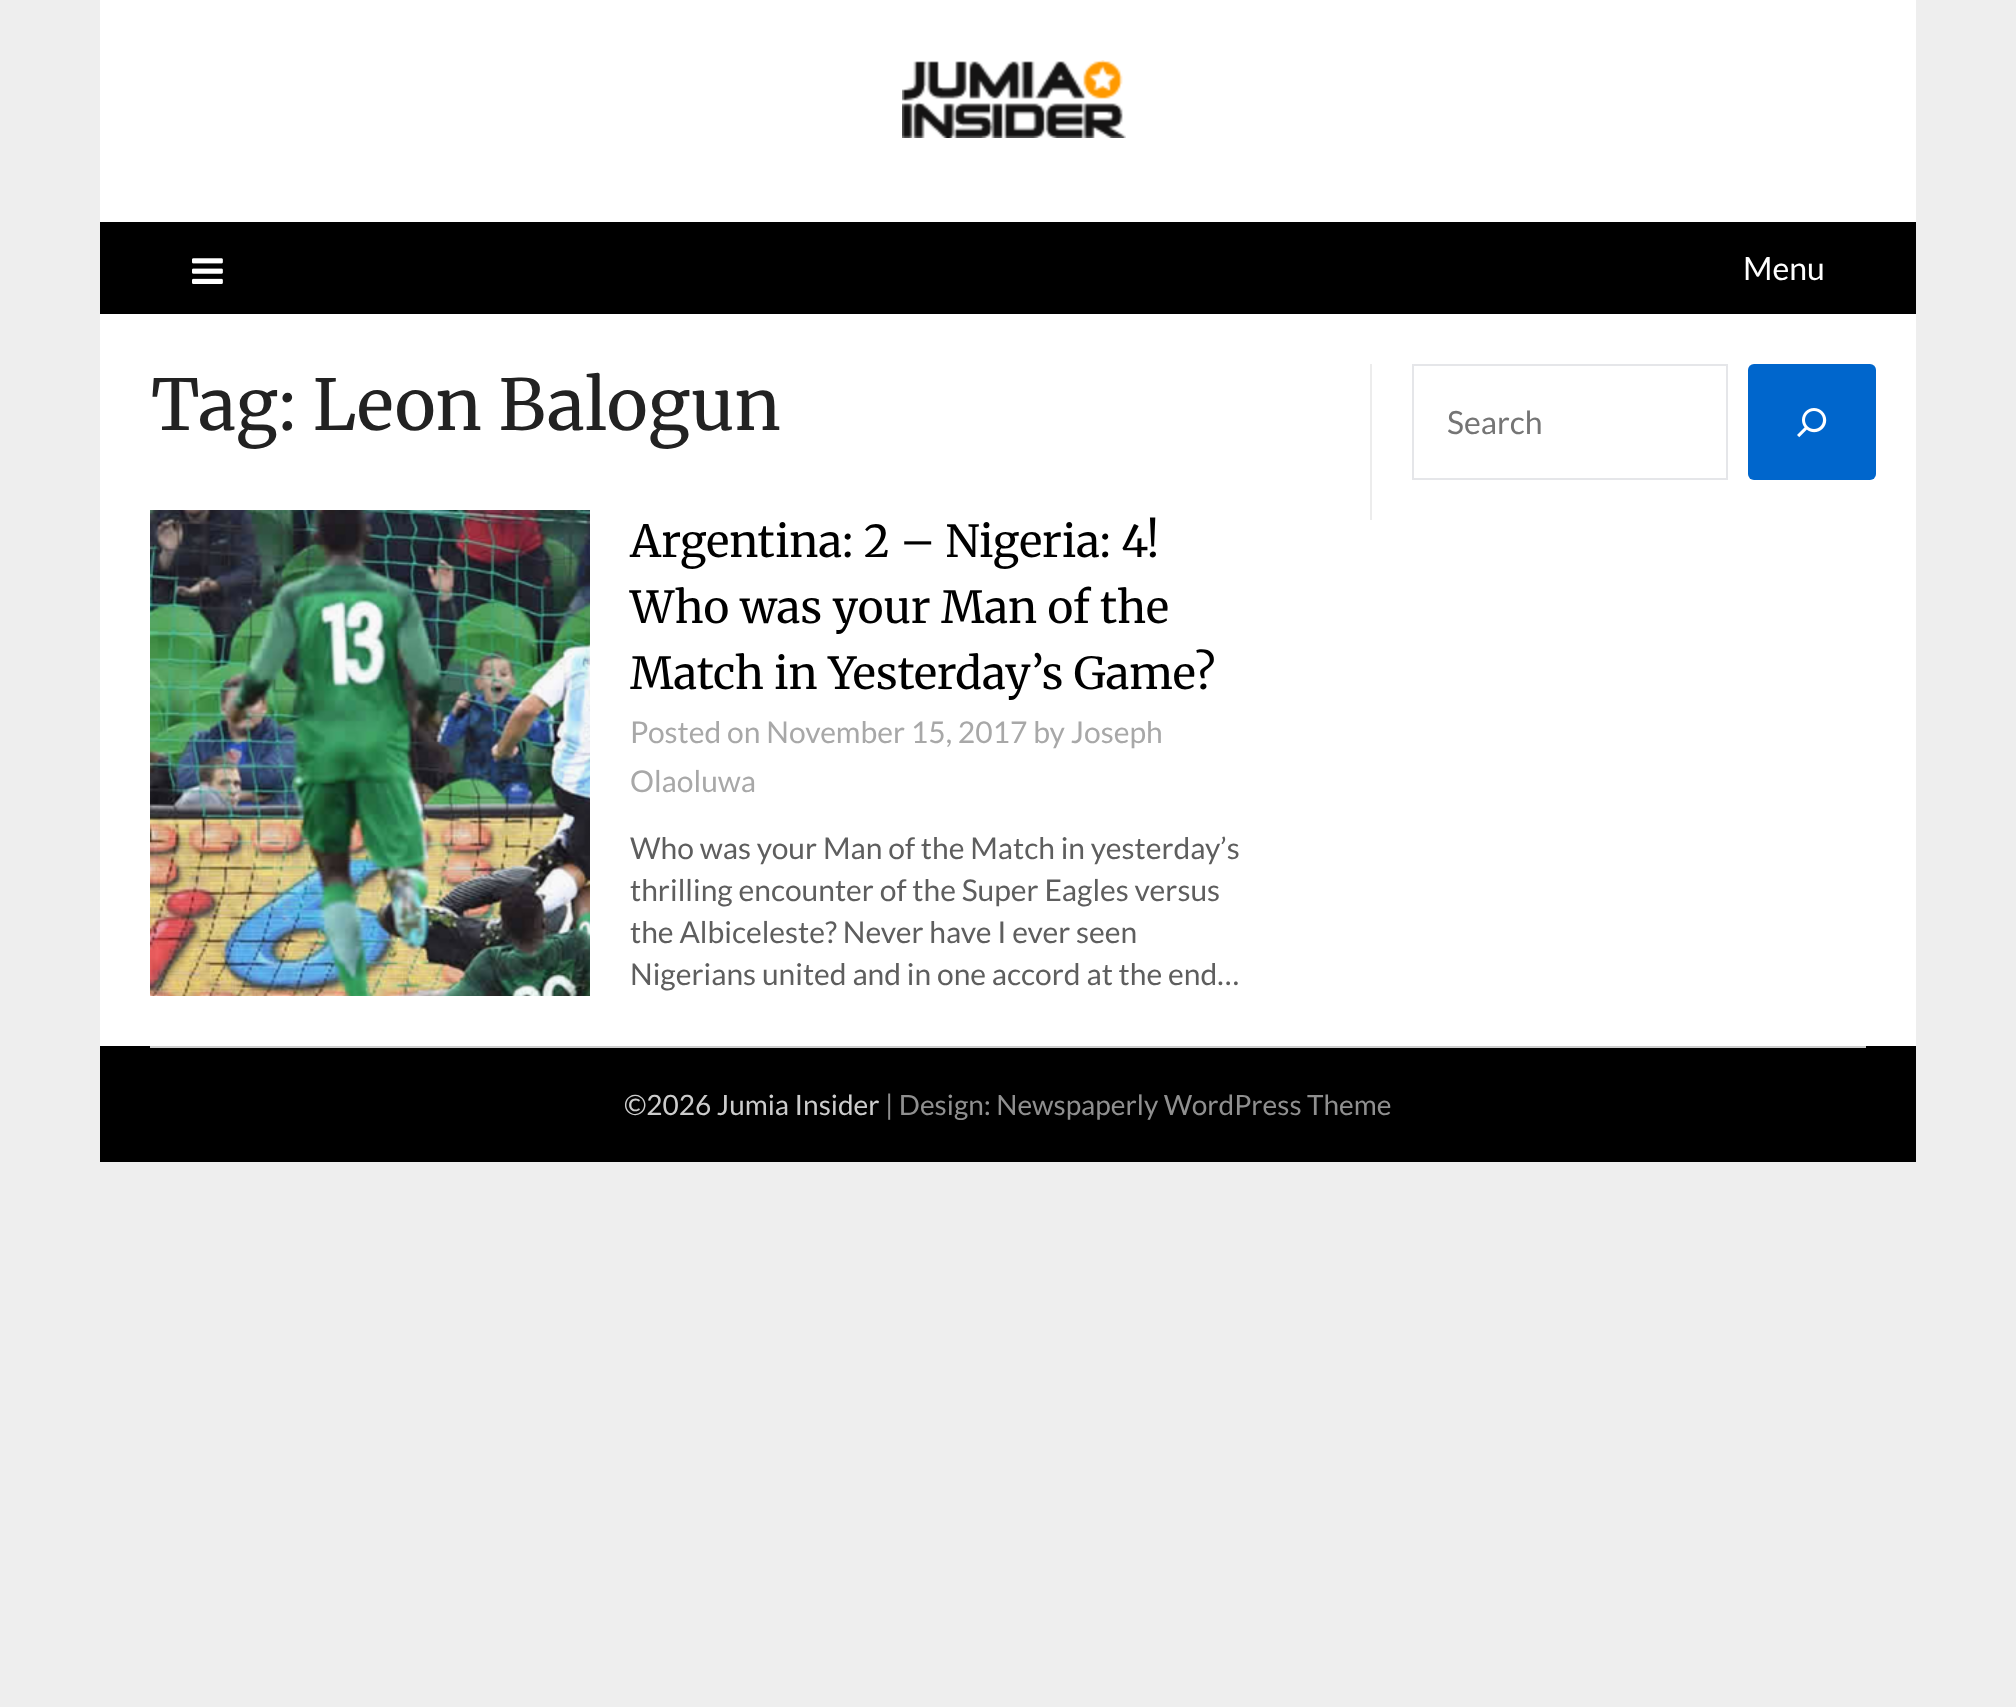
(async () => {
    const canvas = document.querySelector("canvas");
    canvas.width = 2016;
    canvas.height = 1707;
    const context = canvas.getContext("2d");
    context.miterLimit = 4;
    context.fontKerning = "normal";
    function write(s, x, y, font, color) {
        context.font = font;
        context.fillStyle = color;
        context.fillText(s, x, y);
    }
    function block(x, y, w, h, color) {
        context.fillStyle = color;
        context.fillRect(x, y, w, h);
    }
    function card(x, y, w, h, r, color) {
        context.fillStyle = color;
        context.beginPath();
        context.roundRect(x, y, w, h, r);
        context.fill();
    }
    async function photo(src, x, y, w, h) {
        const img = new Image();
        img.src = src;
        await img.decode();
        context.drawImage(img, x, y, w, h);
    }

    block(0, 0, 2016, 1707, "rgb(238, 238, 238)");
    block(100, 0, 1816, 222, "rgb(255, 255, 255)");
    await photo("media/1.png", 902, 60, 224, 78);
    block(100, 222, 1816, 92, "rgb(0, 0, 0)");
    await photo("media/2.png", 192, 258, 31, 26);
    write("Menu", 1743, 280, "32px Lato", "rgb(255, 255, 255)");
    block(100, 314, 1816, 732, "rgb(255, 255, 255)");
    write("Tag: Leon Balogun", 151, 430, "70px Merriweather", "rgb(34, 34, 34)");
    await photo("media/3.png", 150, 510, 440, 486);
    write("Argentina: 2 – Nigeria: 4!", 630, 557, "44px Merriweather", "rgb(0, 0, 0)");
    write("Who was your Man of the", 630, 623, "44px Merriweather", "rgb(0, 0, 0)");
    write("Match in Yesterday’s Game?", 630, 689, "44px Merriweather", "rgb(0, 0, 0)");
    write("Posted on November 15, 2017 by Joseph", 630, 743, "30px Lato", "rgb(168, 168, 168)");
    write("Olaoluwa", 630, 792, "30px Lato", "rgb(168, 168, 168)");
    write("Who was your Man of the Match in yesterday’s", 630, 859, "30px Lato", "rgb(94, 94, 94)");
    write("thrilling encounter of the Super Eagles versus", 630, 901, "30px Lato", "rgb(94, 94, 94)");
    write("the Albiceleste? Never have I ever seen", 630, 943, "30px Lato", "rgb(94, 94, 94)");
    write("Nigerians united and in one accord at the end…", 630, 985, "30px Lato", "rgb(94, 94, 94)");
    block(1370, 364, 2, 156, "rgb(236, 236, 236)");
    context.strokeStyle = "rgb(229, 230, 233)";
    context.lineWidth = 2;
    context.strokeRect(1413, 365, 314, 114);
    write("Search", 1447, 434, "32px Lato", "rgb(117, 117, 117)");
    card(1748, 364, 128, 116, 6, "rgb(0, 102, 204)");
    await photo("media/4.png", 1797, 408, 30, 30);
    block(100, 1046, 1816, 116, "rgb(0, 0, 0)");
    block(150, 1046, 1716, 2, "rgb(204, 204, 204)");
    write("©2026 Jumia Insider", 624, 1115, "28px Lato", "rgb(204, 204, 204)");
    write("| Design: Newspaperly WordPress Theme", 885, 1115, "28px Lato", "rgb(143, 143, 143)");
})();
